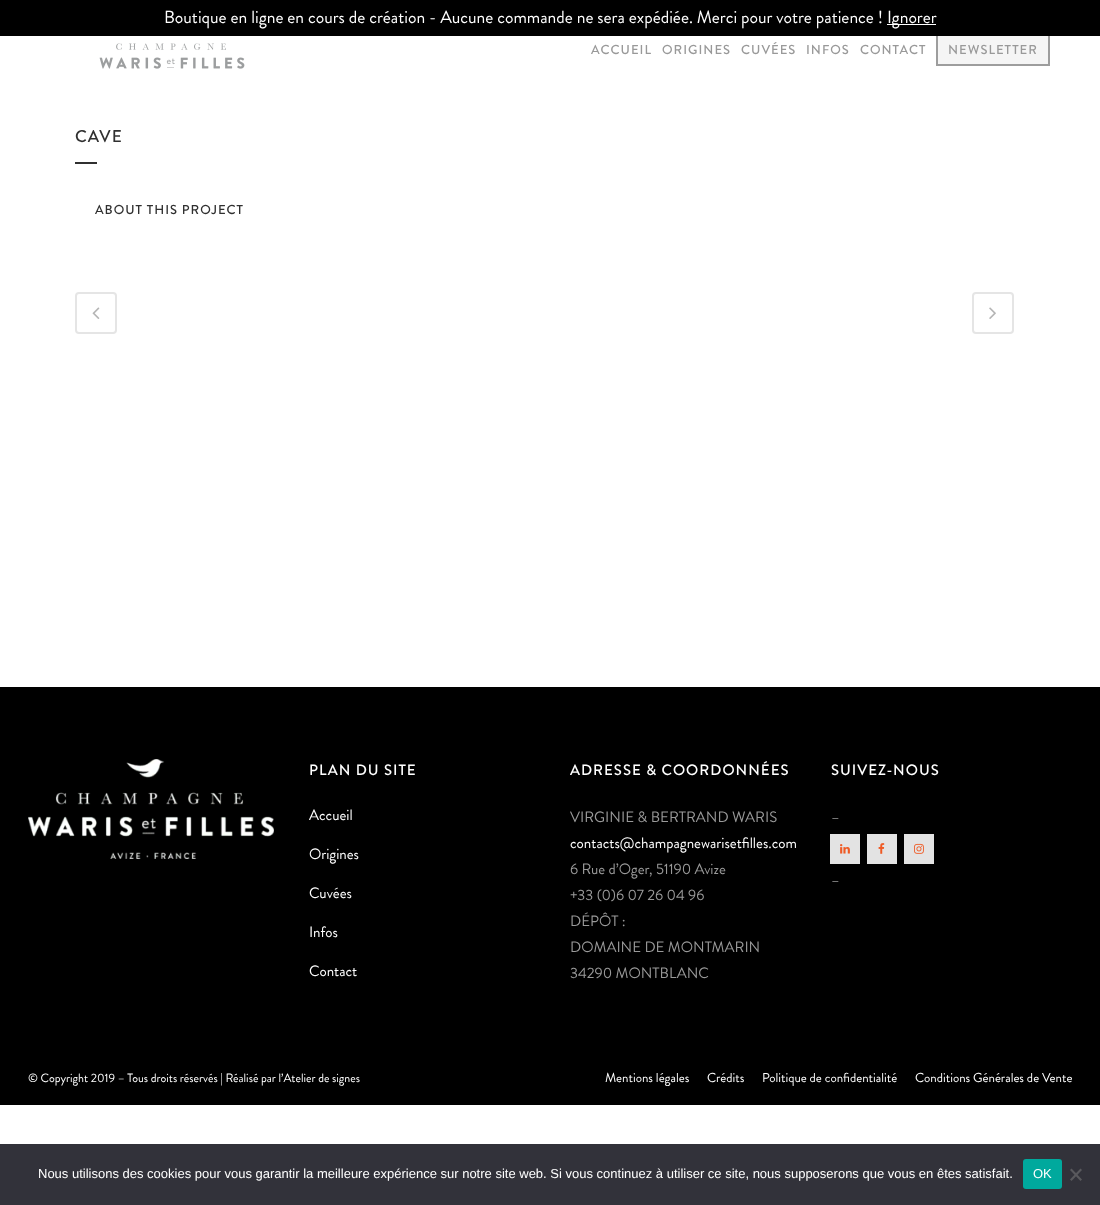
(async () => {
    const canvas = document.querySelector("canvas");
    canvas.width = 1100;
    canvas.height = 1205;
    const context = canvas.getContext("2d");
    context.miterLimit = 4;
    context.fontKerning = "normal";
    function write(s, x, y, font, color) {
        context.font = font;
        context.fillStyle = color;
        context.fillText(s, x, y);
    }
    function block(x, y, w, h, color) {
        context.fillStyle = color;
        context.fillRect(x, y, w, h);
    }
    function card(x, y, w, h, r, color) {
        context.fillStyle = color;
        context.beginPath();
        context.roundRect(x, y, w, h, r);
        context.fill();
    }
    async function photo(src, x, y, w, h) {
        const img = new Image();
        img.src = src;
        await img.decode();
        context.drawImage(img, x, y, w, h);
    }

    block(0, 0, 1100, 1205, "rgb(255, 255, 255)");
    context.fillStyle = "rgb(245, 245, 245)";
    context.beginPath();
    context.rect(937, 35, 112, 30);
    context.fill();
    context.strokeStyle = "rgb(157, 157, 157)";
    context.lineWidth = 2;
    context.stroke();
    block(0, 0, 1100, 36, "rgb(0, 0, 0)");
    write("Boutique en ligne en cours de création - Aucune commande ne sera expédiée. Merci pour votre patience !", 164, 23, "17.6px Brandon Grotesque", "rgb(255, 255, 255)");
    block(887, 24, 49, 1, "rgb(255, 255, 255)");
    write("Ignorer", 887, 23, "17.6px Brandon Grotesque", "rgb(255, 255, 255)");
    await photo("media/1.png", 99, 43, 146, 26);
    context.letterSpacing = "1px";
    write("ACCUEIL", 591, 54, "500 13px Brandon Grotesque", "rgb(153, 153, 153)");
    write("ORIGINES", 662, 54, "500 13px Brandon Grotesque", "rgb(153, 153, 153)");
    write("CUVÉES", 741, 54, "500 13px Brandon Grotesque", "rgb(153, 153, 153)");
    write("INFOS", 806, 54, "500 13px Brandon Grotesque", "rgb(153, 153, 153)");
    write("CONTACT", 860, 54, "500 13px Brandon Grotesque", "rgb(153, 153, 153)");
    write("NEWSLETTER", 948, 54, "500 13px Brandon Grotesque", "rgb(153, 153, 153)");
    write("CAVE", 75, 142, "500 17px Brandon Grotesque", "rgb(48, 48, 48)");
    block(75, 162, 22, 2, "rgb(48, 48, 48)");
    write("ABOUT THIS PROJECT", 95, 214, "500 13px Brandon Grotesque", "rgb(48, 48, 48)");
    context.beginPath();
    context.roundRect(76, 293, 40, 40, 3);
    context.strokeStyle = "rgb(229, 229, 229)";
    context.stroke();
    await photo("media/2.png", 92, 307, 8, 12);
    context.beginPath();
    context.roundRect(973, 293, 40, 40, 3);
    context.stroke();
    await photo("media/3.png", 989, 307, 7, 12);
    block(0, 687, 1100, 418, "rgb(0, 0, 0)");
    await photo("media/4.png", 28, 759, 246, 100);
    write("PLAN DU SITE", 309, 775, "500 15px Brandon Grotesque", "rgb(255, 255, 255)");
    context.letterSpacing = "0px";
    write("Accueil", 309, 820, "15px Brandon Grotesque", "rgb(255, 255, 255)");
    write("Origines", 309, 859, "15px Brandon Grotesque", "rgb(255, 255, 255)");
    write("Cuvées", 309, 898, "15px Brandon Grotesque", "rgb(255, 255, 255)");
    write("Infos", 309, 937, "15px Brandon Grotesque", "rgb(255, 255, 255)");
    write("Contact", 309, 976, "15px Brandon Grotesque", "rgb(255, 255, 255)");
    context.letterSpacing = "1px";
    write("ADRESSE & COORDONNÉES", 570, 775, "500 15px Brandon Grotesque", "rgb(255, 255, 255)");
    context.letterSpacing = "0px";
    write("VIRGINIE & BERTRAND WARIS", 570, 822, "15px Brandon Grotesque", "rgb(153, 153, 153)");
    write("contacts@champagnewarisetﬁlles.com", 570, 848, "15px Brandon Grotesque", "rgb(255, 255, 255)");
    write("6 Rue d’Oger, 51190 Avize", 570, 874, "15px Brandon Grotesque", "rgb(153, 153, 153)");
    write("+33 (0)6 07 26 04 96", 570, 900, "15px Brandon Grotesque", "rgb(153, 153, 153)");
    write("DÉPÔT :", 570, 926, "15px Brandon Grotesque", "rgb(153, 153, 153)");
    write("DOMAINE DE MONTMARIN", 570, 952, "15px Brandon Grotesque", "rgb(153, 153, 153)");
    write("34290 MONTBLANC", 570, 978, "15px Brandon Grotesque", "rgb(153, 153, 153)");
    context.letterSpacing = "1px";
    write("SUIVEZ-NOUS", 831, 775, "500 15px Brandon Grotesque", "rgb(255, 255, 255)");
    context.letterSpacing = "0px";
    write("–", 831, 822, "15px Brandon Grotesque", "rgb(153, 153, 153)");
    block(830, 834, 30, 30, "rgb(227, 227, 227)");
    await photo("media/5.png", 840, 844, 10, 10);
    block(867, 834, 30, 30, "rgb(227, 227, 227)");
    await photo("media/6.png", 878, 843, 7, 11);
    block(904, 834, 30, 30, "rgb(227, 227, 227)");
    await photo("media/7.png", 914, 843, 10, 11);
    write("–", 831, 885, "15px Brandon Grotesque", "rgb(153, 153, 153)");
    write("© Copyright 2019 – Tous droits réservés | Réalisé par l’Atelier de signes", 28, 1082, "12px Brandon Grotesque", "rgb(255, 255, 255)");
    write("Mentions légales", 605, 1082, "13px Brandon Grotesque", "rgb(255, 255, 255)");
    write("Crédits", 707, 1082, "13px Brandon Grotesque", "rgb(255, 255, 255)");
    write("Politique de confidentialité", 762, 1082, "13px Brandon Grotesque", "rgb(255, 255, 255)");
    write("Conditions Générales de Vente", 915, 1082, "13px Brandon Grotesque", "rgb(255, 255, 255)");
    block(0, 1144, 1100, 61, "rgb(50, 50, 58)");
    write("Nous utilisons des cookies pour vous garantir la meilleure expérience sur notre site web. Si vous continuez à utiliser ce site, nous supposerons que vous en êtes satisfait.", 38, 1178, "13px Liberation Sans", "rgb(255, 255, 255)");
    card(1023, 1159, 39, 30, 3, "rgb(0, 169, 157)");
    write("OK", 1033, 1178, "13px Liberation Sans", "rgb(255, 255, 255)");
    context.fillStyle = "rgb(89, 89, 93)";
    context.beginPath();
    context.moveTo(1080.5, 1168.5);
    context.lineTo(1082, 1170);
    context.lineTo(1071.5, 1181);
    context.lineTo(1070, 1179.5);
    context.closePath();
    context.fill();
    context.beginPath();
    context.moveTo(1070, 1170);
    context.lineTo(1071.5, 1168.5);
    context.lineTo(1082, 1179.5);
    context.lineTo(1080.5, 1181);
    context.closePath();
    context.fill();
})();
